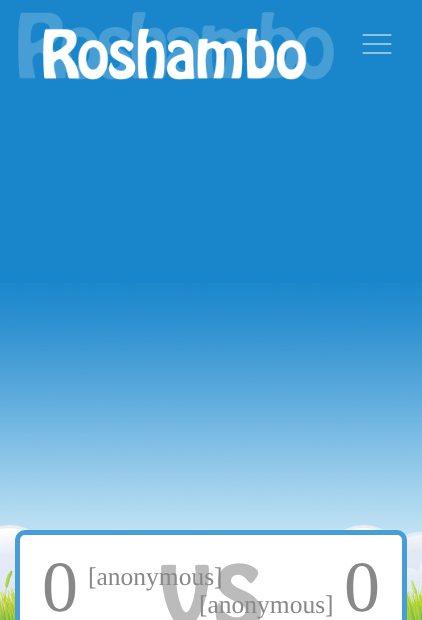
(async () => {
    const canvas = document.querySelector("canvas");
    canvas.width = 422;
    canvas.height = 620;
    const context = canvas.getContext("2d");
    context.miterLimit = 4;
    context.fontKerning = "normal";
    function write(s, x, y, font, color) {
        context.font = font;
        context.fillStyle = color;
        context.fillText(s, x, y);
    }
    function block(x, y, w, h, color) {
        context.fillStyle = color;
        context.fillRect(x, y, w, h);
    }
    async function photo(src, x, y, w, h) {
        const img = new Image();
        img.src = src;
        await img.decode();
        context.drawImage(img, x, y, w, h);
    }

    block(0, 0, 422, 620, "rgb(25, 134, 203)");
    await photo("media/1.png", 0, 283, 422, 337);
    await photo("media/2.png", 18, 12, 316, 68);
    context.beginPath();
    context.moveTo(363.5, 35);
    context.lineTo(390.5, 35);
    context.moveTo(363.5, 44);
    context.lineTo(390.5, 44);
    context.moveTo(363.5, 53);
    context.lineTo(390.5, 53);
    context.strokeStyle = "rgb(140, 195, 229)";
    context.lineWidth = 2.2;
    context.lineCap = "round";
    context.stroke();
    context.fillStyle = "rgb(255, 255, 255)";
    context.beginPath();
    context.roundRect(17.5, 532.5, 387, 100, 7.5);
    context.fill();
    context.strokeStyle = "rgb(71, 158, 213)";
    context.lineWidth = 5;
    context.stroke();
    await photo("media/3.png", 161, 563, 100, 57);
    write("0", 42, 611, "72px Liberation Serif", "rgb(136, 136, 136)");
    write("[anonymous]", 88, 585, "25.5px Liberation Serif", "rgb(136, 136, 136)");
    write("[anonymous]", 199, 613, "25.5px Liberation Serif", "rgb(136, 136, 136)");
    write("0", 344, 611, "72px Liberation Serif", "rgb(136, 136, 136)");
})();
